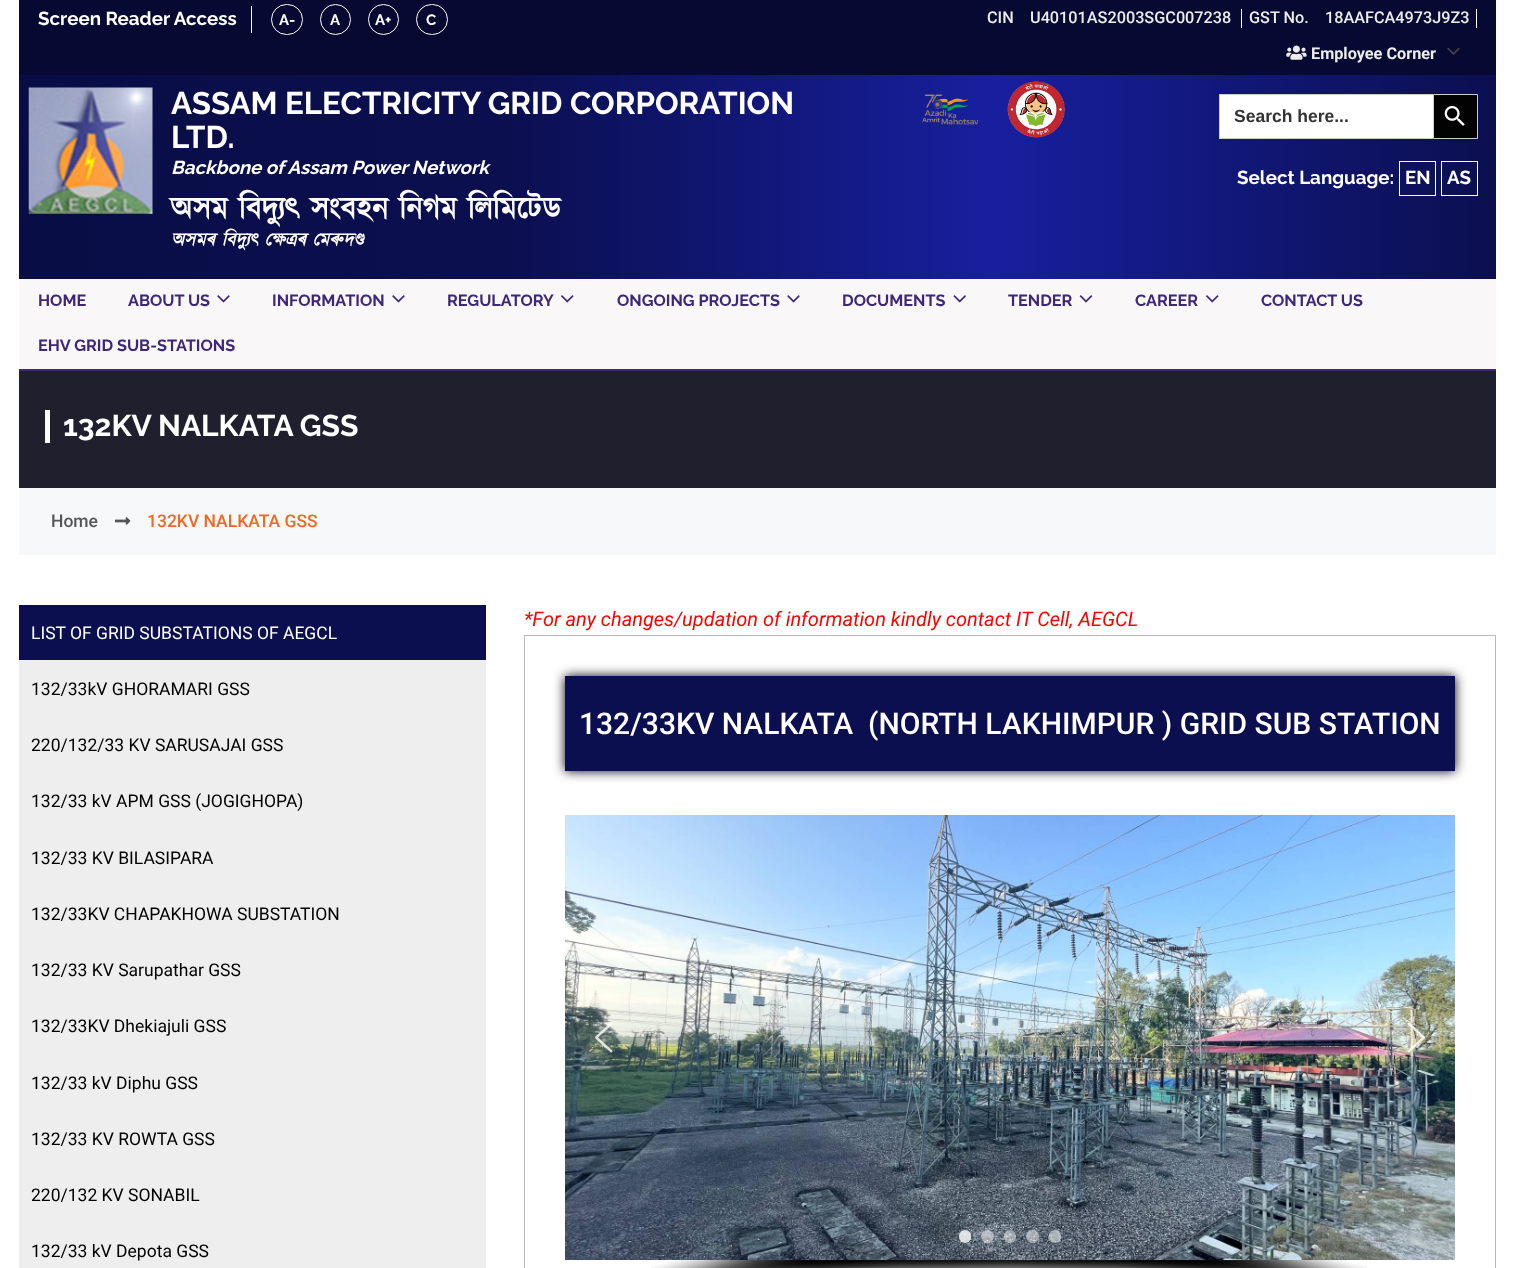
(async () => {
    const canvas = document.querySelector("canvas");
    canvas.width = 1514;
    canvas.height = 1268;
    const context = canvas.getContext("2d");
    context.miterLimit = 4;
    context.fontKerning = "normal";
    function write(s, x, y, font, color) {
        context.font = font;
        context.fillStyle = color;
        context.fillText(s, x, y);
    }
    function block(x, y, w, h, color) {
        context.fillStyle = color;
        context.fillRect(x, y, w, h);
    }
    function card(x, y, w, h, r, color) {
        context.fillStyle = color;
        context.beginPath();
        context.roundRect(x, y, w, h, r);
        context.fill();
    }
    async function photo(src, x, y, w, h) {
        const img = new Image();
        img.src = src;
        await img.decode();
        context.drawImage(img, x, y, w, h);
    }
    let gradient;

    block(0, 0, 1514, 1268, "rgb(255, 255, 255)");
    block(19, 0, 1477, 75, "rgb(6, 9, 49)");
    block(251, 6, 1, 27, "rgb(255, 255, 255)");
    write("Screen Reader Access", 38, 25, "100 18.75px Raleway", "rgb(255, 255, 255)");
    context.beginPath();
    context.roundRect(271.5, 4.5, 31, 30, 15);
    context.strokeStyle = "rgb(255, 255, 255)";
    context.stroke();
    write("A-", 279, 25, "100 15px Raleway", "rgb(255, 255, 255)");
    context.beginPath();
    context.arc(335.5, 19.5, 15, 0, Math.PI * 2);
    context.stroke();
    write("A", 330, 25, "100 15px Raleway", "rgb(255, 255, 255)");
    context.beginPath();
    context.arc(383.5, 19.5, 15, 0, Math.PI * 2);
    context.stroke();
    write("A+", 375, 25, "100 15px Raleway", "rgb(255, 255, 255)");
    context.beginPath();
    context.roundRect(416.5, 4.5, 31, 30, 15);
    context.stroke();
    write("C", 426, 25, "100 15px Raleway", "rgb(255, 255, 255)");
    write("CIN", 987, 23, "500 16.25px Roboto", "rgb(236, 236, 236)");
    write("U40101AS2003SGC007238", 1030, 23, "500 16.25px Roboto", "rgb(236, 236, 236)");
    block(1241, 9, 1, 19, "rgb(255, 255, 255)");
    write("GST No.", 1249, 23, "500 16.25px Roboto", "rgb(236, 236, 236)");
    write("18AAFCA4973J9Z3", 1325, 23, "500 16.25px Roboto", "rgb(236, 236, 236)");
    block(1476, 9, 1, 19, "rgb(255, 255, 255)");
    await photo("media/1.png", 1286, 45, 21, 15);
    write("Employee Corner", 1311, 59, "bold 16.25px Roboto", "rgb(236, 236, 236)");
    await photo("media/2.png", 1447, 47, 13, 8);
    gradient = context.createLinearGradient(19, 177, 1496, 177);
    gradient.addColorStop(0.02, "rgb(9, 13, 70)");
    gradient.addColorStop(0.33, "rgb(11, 15, 79)");
    gradient.addColorStop(0.66, "rgb(23, 31, 158)");
    gradient.addColorStop(1, "rgb(11, 15, 79)");
    context.fillStyle = gradient;
    context.fillRect(19, 75, 1477, 204);
    await photo("media/3.png", 28, 87, 125, 127);
    write("ASSAM ELECTRICITY GRID CORPORATION", 171, 114, "100 31.25px Raleway", "rgb(255, 255, 255)");
    write("LTD.", 171, 148, "100 31.25px Raleway", "rgb(255, 255, 255)");
    write("Backbone of Assam Power Network", 171, 174, "italic 100 18.75px Raleway", "rgb(255, 255, 255)");
    write("অসম বিদ্যুৎ সংবহন নিগম লিমিটেড", 171, 219, "bold 31.25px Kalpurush", "rgb(255, 255, 255)");
    write("অসমৰ বিদ্যুৎ ক্ষেত্ৰৰ মেৰুদণ্ড", 171, 246, "italic bold 18.75px Kalpurush", "rgb(255, 255, 255)");
    await photo("media/4.png", 922, 94, 57, 31);
    await photo("media/5.png", 1007, 81, 58, 57);
    block(1220, 95, 213, 43, "rgb(255, 255, 255)");
    block(1219, 94, 214, 1, "rgb(204, 204, 204)");
    block(1219, 138, 214, 1, "rgb(204, 204, 204)");
    block(1219, 94, 1, 45, "rgb(204, 204, 204)");
    write("Search here...", 1234, 122, "bold 17.5px Liberation Sans", "rgb(51, 51, 51)");
    context.fillStyle = "rgb(2, 2, 2)";
    context.beginPath();
    context.rect(1433.5, 94.5, 44, 44);
    context.fill();
    context.strokeStyle = "rgb(204, 204, 204)";
    context.stroke();
    await photo("media/6.png", 1444, 105, 21, 21);
    write("Select Language:", 1237, 184, "100 18.75px Raleway", "rgb(255, 255, 255)");
    context.strokeStyle = "rgb(255, 255, 255)";
    context.strokeRect(1399.5, 161.5, 36, 34);
    write("EN", 1405, 184, "100 18.75px Raleway", "rgb(255, 255, 255)");
    context.strokeRect(1441.5, 161.5, 36, 34);
    write("AS", 1447, 184, "100 18.75px Raleway", "rgb(255, 255, 255)");
    block(19, 279, 1477, 90, "rgb(249, 247, 247)");
    block(19, 369, 1477, 2, "rgb(62, 39, 118)");
    write("HOME", 38, 306, "100 16.25px Raleway", "rgb(62, 39, 118)");
    write("ABOUT US", 128, 306, "100 16.25px Raleway", "rgb(62, 39, 118)");
    await photo("media/7.png", 217, 295, 13, 8);
    write("INFORMATION", 272, 306, "100 16.25px Raleway", "rgb(62, 39, 118)");
    await photo("media/7.png", 392, 295, 13, 8);
    write("REGULATORY", 447, 306, "100 16.25px Raleway", "rgb(62, 39, 118)");
    await photo("media/8.png", 561, 295, 13, 8);
    write("ONGOING PROJECTS", 617, 306, "100 16.25px Raleway", "rgb(62, 39, 118)");
    await photo("media/7.png", 787, 295, 13, 8);
    write("DOCUMENTS", 842, 306, "100 16.25px Raleway", "rgb(62, 39, 118)");
    await photo("media/9.png", 953, 295, 13, 8);
    write("TENDER", 1008, 306, "100 16.25px Raleway", "rgb(62, 39, 118)");
    await photo("media/10.png", 1079, 295, 14, 8);
    write("CAREER", 1135, 306, "100 16.25px Raleway", "rgb(62, 39, 118)");
    await photo("media/8.png", 1206, 295, 13, 8);
    write("CONTACT US", 1261, 306, "100 16.25px Raleway", "rgb(62, 39, 118)");
    write("EHV GRID SUB-STATIONS", 38, 351, "100 16.25px Raleway", "rgb(62, 39, 118)");
    block(19, 371, 1477, 117, "rgb(31, 31, 45)");
    block(45, 410, 5, 33, "rgb(255, 255, 255)");
    write("132KV NALKATA GSS", 63, 436, "100 30px Raleway", "rgb(255, 255, 255)");
    block(19, 488, 1477, 67, "rgb(246, 248, 250)");
    write("Home", 51, 527, "500 17.5px Roboto", "rgb(85, 85, 85)");
    await photo("media/11.png", 115, 517, 16, 8);
    write("132KV NALKATA GSS", 147, 527, "500 17.5px Roboto", "rgb(242, 103, 35)");
    block(19, 605, 467, 55, "rgb(11, 15, 79)");
    block(19, 660, 467, 608, "rgb(238, 238, 238)");
    write("LIST OF GRID SUBSTATIONS OF AEGCL", 31, 639, "17.5px Roboto", "rgb(255, 255, 255)");
    write("132/33kV GHORAMARI GSS", 31, 695, "17.5px Roboto", "rgb(0, 0, 0)");
    write("220/132/33 KV SARUSAJAI GSS", 31, 751, "17.5px Roboto", "rgb(0, 0, 0)");
    write("132/33 kV APM GSS (JOGIGHOPA)", 31, 807, "17.5px Roboto", "rgb(0, 0, 0)");
    write("132/33 KV BILASIPARA", 31, 864, "17.5px Roboto", "rgb(0, 0, 0)");
    write("132/33KV CHAPAKHOWA SUBSTATION", 31, 920, "17.5px Roboto", "rgb(0, 0, 0)");
    write("132/33 KV Sarupathar GSS", 31, 976, "17.5px Roboto", "rgb(0, 0, 0)");
    write("132/33KV Dhekiajuli GSS", 31, 1032, "17.5px Roboto", "rgb(0, 0, 0)");
    write("132/33 kV Diphu GSS", 31, 1089, "17.5px Roboto", "rgb(0, 0, 0)");
    write("132/33 KV ROWTA GSS", 31, 1145, "17.5px Roboto", "rgb(0, 0, 0)");
    write("220/132 KV SONABIL", 31, 1201, "17.5px Roboto", "rgb(0, 0, 0)");
    write("132/33 kV Depota GSS", 31, 1257, "17.5px Roboto", "rgb(0, 0, 0)");
    write("*For any changes/updation of information kindly contact IT Cell, AEGCL", 524, 626, "italic 20px Roboto", "rgb(255, 0, 0)");
    context.strokeStyle = "rgb(186, 186, 186)";
    context.strokeRect(524.5, 635.5, 971, 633);
    context.fillStyle = "rgb(0, 0, 0)";
    context.filter = "blur(6px)";
    context.beginPath();
    context.rect(565, 676, 890, 95);
    context.fill();
    context.filter = "none";
    block(565, 676, 890, 95, "rgb(11, 15, 79)");
    write("132/33KV NALKATA  (NORTH LAKHIMPUR ) GRID SUB STATION", 579, 734, "500 30px Roboto", "rgb(255, 255, 255)");
    await photo("media/12.png", 565, 815, 890, 445);
    await photo("media/13.png", 595, 1022, 18, 31);
    await photo("media/14.png", 1407, 1022, 18, 31);
    card(959, 1230, 12, 13, 6, "rgba(255, 255, 255, 0.8)");
    context.fillStyle = "rgba(255, 255, 255, 0.5)";
    context.beginPath();
    context.arc(987.5, 1236.5, 6.5, 0, Math.PI * 2);
    context.fill();
    card(1004, 1230, 12, 13, 6, "rgba(255, 255, 255, 0.5)");
    context.beginPath();
    context.arc(1032.5, 1236.5, 6.5, 0, Math.PI * 2);
    context.fill();
    card(1049, 1230, 12, 13, 6, "rgba(255, 255, 255, 0.5)");
    await photo("media/15.png", 651, 1260, 716, 8);
})();
